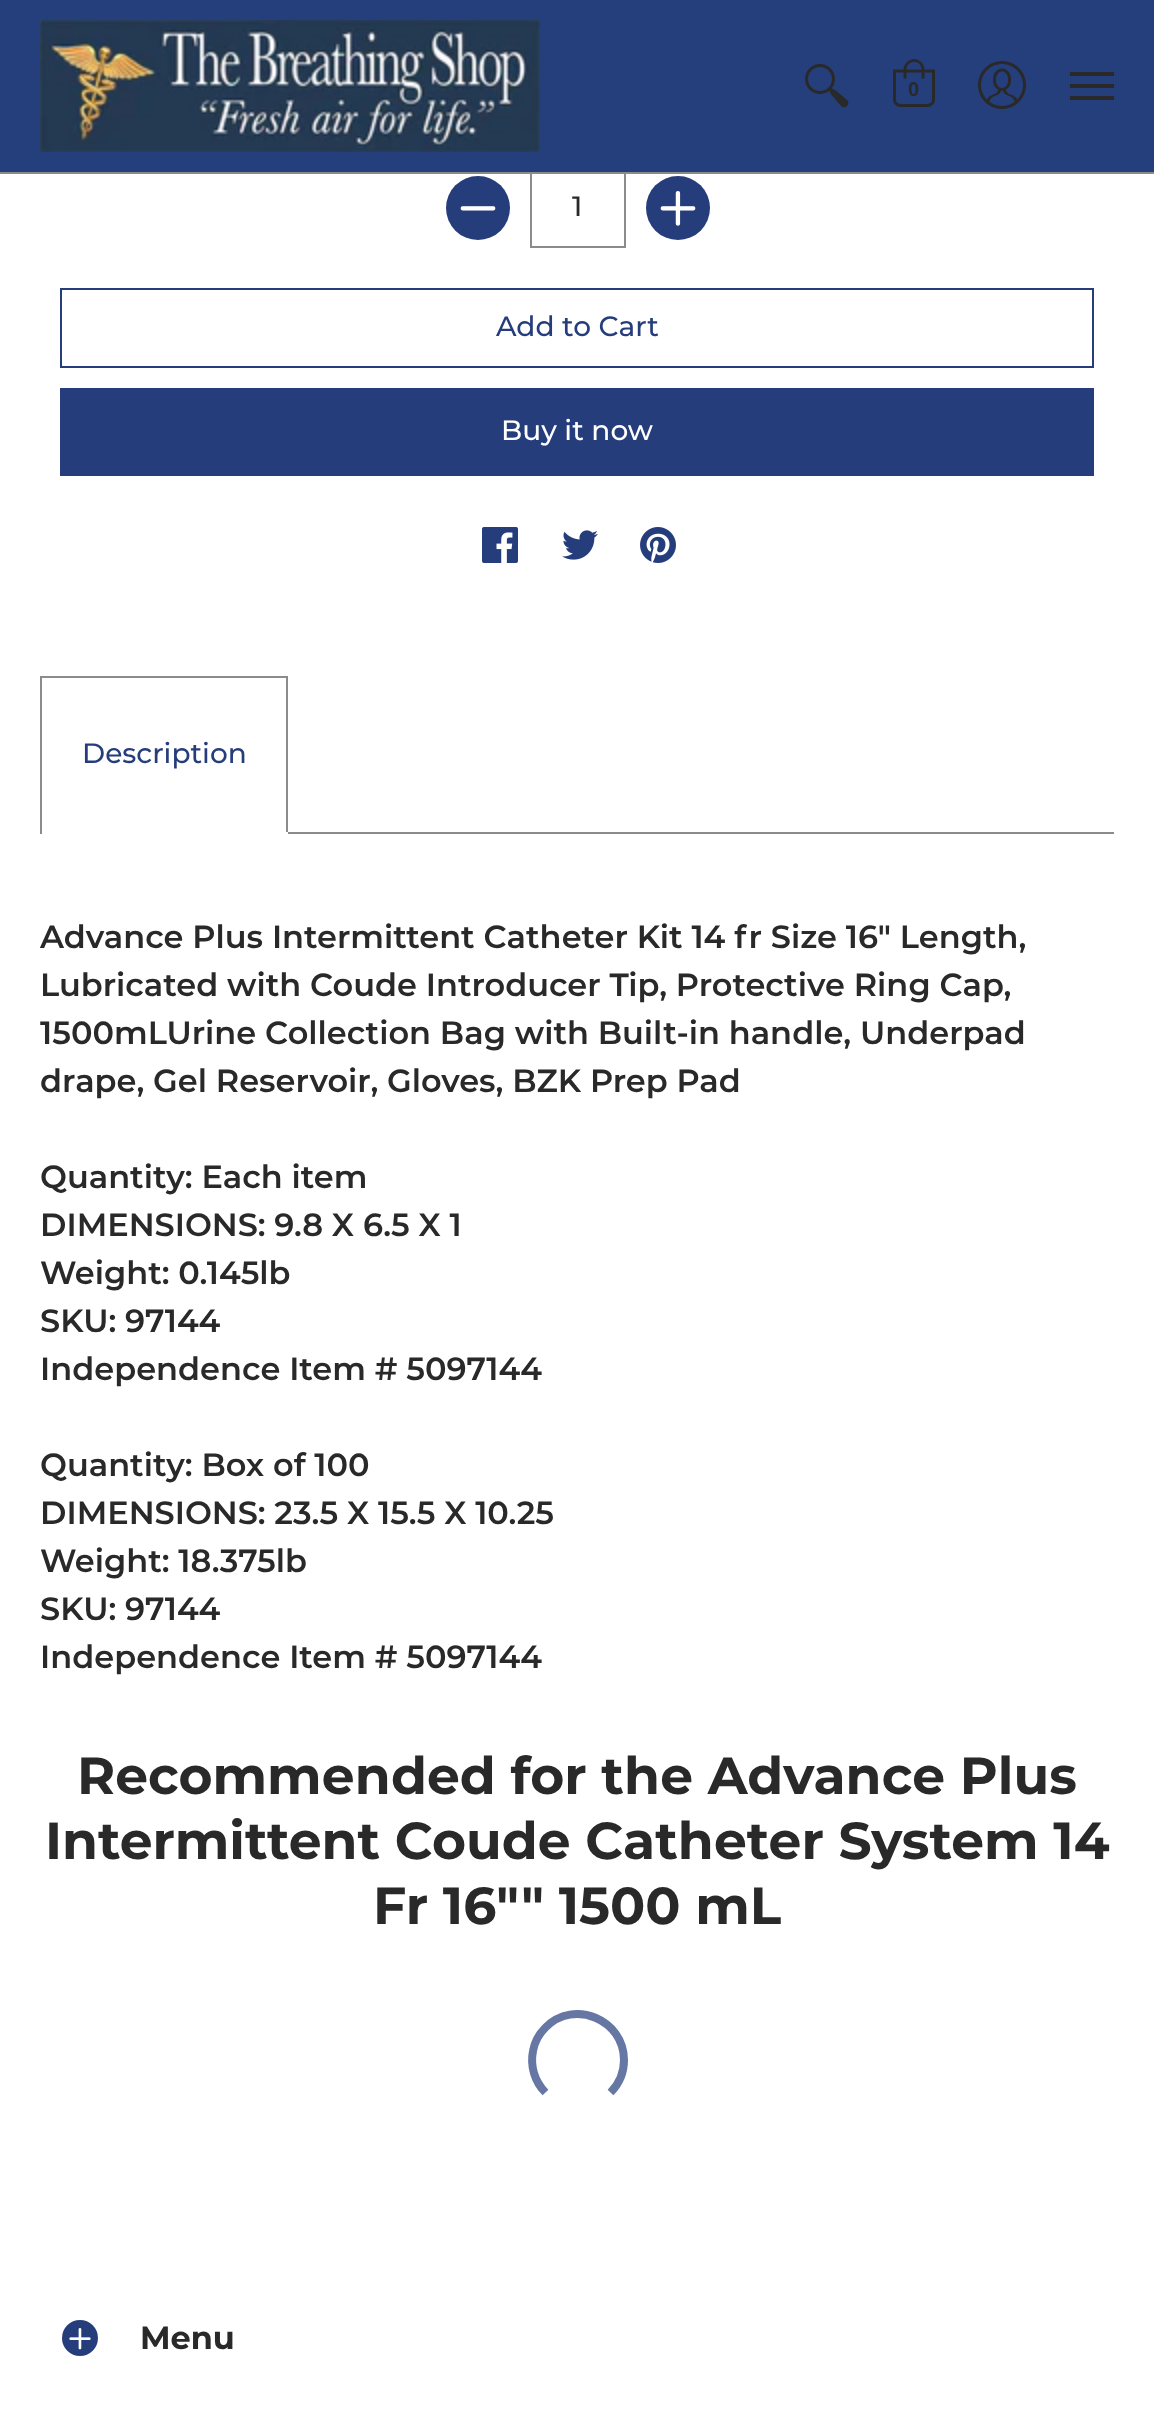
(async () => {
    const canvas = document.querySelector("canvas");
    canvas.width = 1154;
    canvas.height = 2435;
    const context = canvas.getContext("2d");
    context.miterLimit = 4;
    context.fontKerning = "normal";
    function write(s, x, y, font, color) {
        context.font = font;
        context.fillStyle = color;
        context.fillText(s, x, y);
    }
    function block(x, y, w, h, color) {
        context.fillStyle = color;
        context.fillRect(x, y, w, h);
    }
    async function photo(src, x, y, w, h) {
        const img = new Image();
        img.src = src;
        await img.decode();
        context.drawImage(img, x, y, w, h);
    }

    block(0, 0, 1154, 2435, "rgb(255, 255, 255)");
    context.strokeStyle = "rgb(139, 139, 139)";
    context.lineWidth = 2;
    context.strokeRect(531, 169, 94, 78);
    block(0, 0, 1154, 172, "rgb(37, 62, 124)");
    block(0, 172, 1154, 2, "rgb(139, 139, 139)");
    await photo("media/1.png", 40, 20, 500, 132);
    await photo("media/2.png", 805, 64, 44, 44);
    await photo("media/3.png", 893, 59, 42, 48);
    write("0", 908, 96, "bold 20px Liberation Sans", "rgb(41, 41, 41)");
    await photo("media/4.png", 978, 61, 48, 48);
    block(1070, 72, 44, 4, "rgb(41, 41, 41)");
    block(1070, 96, 44, 4, "rgb(41, 41, 41)");
    block(1070, 84, 44, 4, "rgb(41, 41, 41)");
    context.fillStyle = "rgb(38, 61, 124)";
    context.beginPath();
    context.arc(478, 208, 32, 0, Math.PI * 2);
    context.fill();
    await photo("media/5.png", 460, 206, 36, 5);
    write("1", 572, 216, "500 28px Montserrat", "rgb(41, 41, 41)");
    context.fillStyle = "rgb(38, 61, 124)";
    context.beginPath();
    context.arc(678, 208, 32, 0, Math.PI * 2);
    context.fill();
    await photo("media/6.png", 660, 191, 36, 35);
    context.strokeStyle = "rgb(38, 61, 124)";
    context.strokeRect(61, 289, 1032, 78);
    write("Add to Cart", 496, 336, "500 28px Montserrat", "rgb(38, 61, 124)");
    block(60, 388, 1034, 88, "rgb(38, 61, 124)");
    write("Buy it now", 501, 440, "500 28px Montserrat", "rgb(255, 255, 255)");
    await photo("media/7.png", 482, 527, 36, 36);
    await photo("media/8.png", 562, 530, 36, 30);
    await photo("media/9.png", 640, 527, 36, 36);
    block(40, 676, 248, 2, "rgb(139, 139, 139)");
    block(286, 676, 2, 158, "rgb(139, 139, 139)");
    block(286, 832, 2, 2, "rgb(255, 255, 255)");
    block(40, 676, 2, 158, "rgb(139, 139, 139)");
    write("Description", 82, 763, "500 28px Montserrat", "rgb(38, 61, 124)");
    block(288, 832, 826, 2, "rgb(139, 139, 139)");
    write("Advance Plus Intermittent Catheter Kit 14 fr Size 16\" Length,", 40, 948, "600 32px Montserrat", "rgb(41, 41, 41)");
    write("Lubricated with Coude Introducer Tip, Protective Ring Cap,", 40, 996, "600 32px Montserrat", "rgb(41, 41, 41)");
    write("1500mLUrine Collection Bag with Built-in handle, Underpad", 40, 1044, "600 32px Montserrat", "rgb(41, 41, 41)");
    write("drape, Gel Reservoir, Gloves, BZK Prep Pad", 40, 1092, "600 32px Montserrat", "rgb(41, 41, 41)");
    write("Quantity: Each item", 40, 1188, "600 32px Montserrat", "rgb(41, 41, 41)");
    write("DIMENSIONS: 9.8 X 6.5 X 1", 40, 1236, "600 32px Montserrat", "rgb(41, 41, 41)");
    write("Weight: 0.145lb", 40, 1284, "600 32px Montserrat", "rgb(41, 41, 41)");
    write("SKU: 97144", 40, 1332, "600 32px Montserrat", "rgb(41, 41, 41)");
    write("Independence Item # 5097144", 40, 1380, "600 32px Montserrat", "rgb(41, 41, 41)");
    write("Quantity: Box of 100", 40, 1476, "600 32px Montserrat", "rgb(41, 41, 41)");
    write("DIMENSIONS: 23.5 X 15.5 X 10.25", 40, 1524, "600 32px Montserrat", "rgb(41, 41, 41)");
    write("Weight: 18.375lb", 40, 1572, "600 32px Montserrat", "rgb(41, 41, 41)");
    write("SKU: 97144", 40, 1620, "600 32px Montserrat", "rgb(41, 41, 41)");
    write("Independence Item # 5097144", 40, 1668, "600 32px Montserrat", "rgb(41, 41, 41)");
    write("Recommended for the Advance Plus", 77, 1794, "bold 52px Montserrat", "rgb(41, 41, 41)");
    write("Intermittent Coude Catheter System 14", 45, 1859, "bold 52px Montserrat", "rgb(41, 41, 41)");
    write("Fr 16\"\" 1500 mL", 373, 1924, "bold 52px Montserrat", "rgb(41, 41, 41)");
    context.beginPath();
    context.moveTo(545.5, 2092.5);
    context.bezierCurveTo(534.5, 2081.5, 530, 2066, 533, 2051);
    context.bezierCurveTo(534.5, 2042, 539, 2034, 545.5, 2027.5);
    context.bezierCurveTo(574, 1998.5, 624, 2019.5, 624, 2060);
    context.bezierCurveTo(624, 2072, 619, 2084, 610.5, 2092.5);
    context.strokeStyle = "rgb(103, 119, 163)";
    context.lineWidth = 8;
    context.stroke();
    context.fillStyle = "rgb(38, 61, 124)";
    context.beginPath();
    context.arc(80, 2338, 18, 0, Math.PI * 2);
    context.fill();
    await photo("media/10.png", 69, 2328, 22, 22);
    write("Menu", 140, 2349, "bold 32px Montserrat", "rgb(41, 41, 41)");
})();
